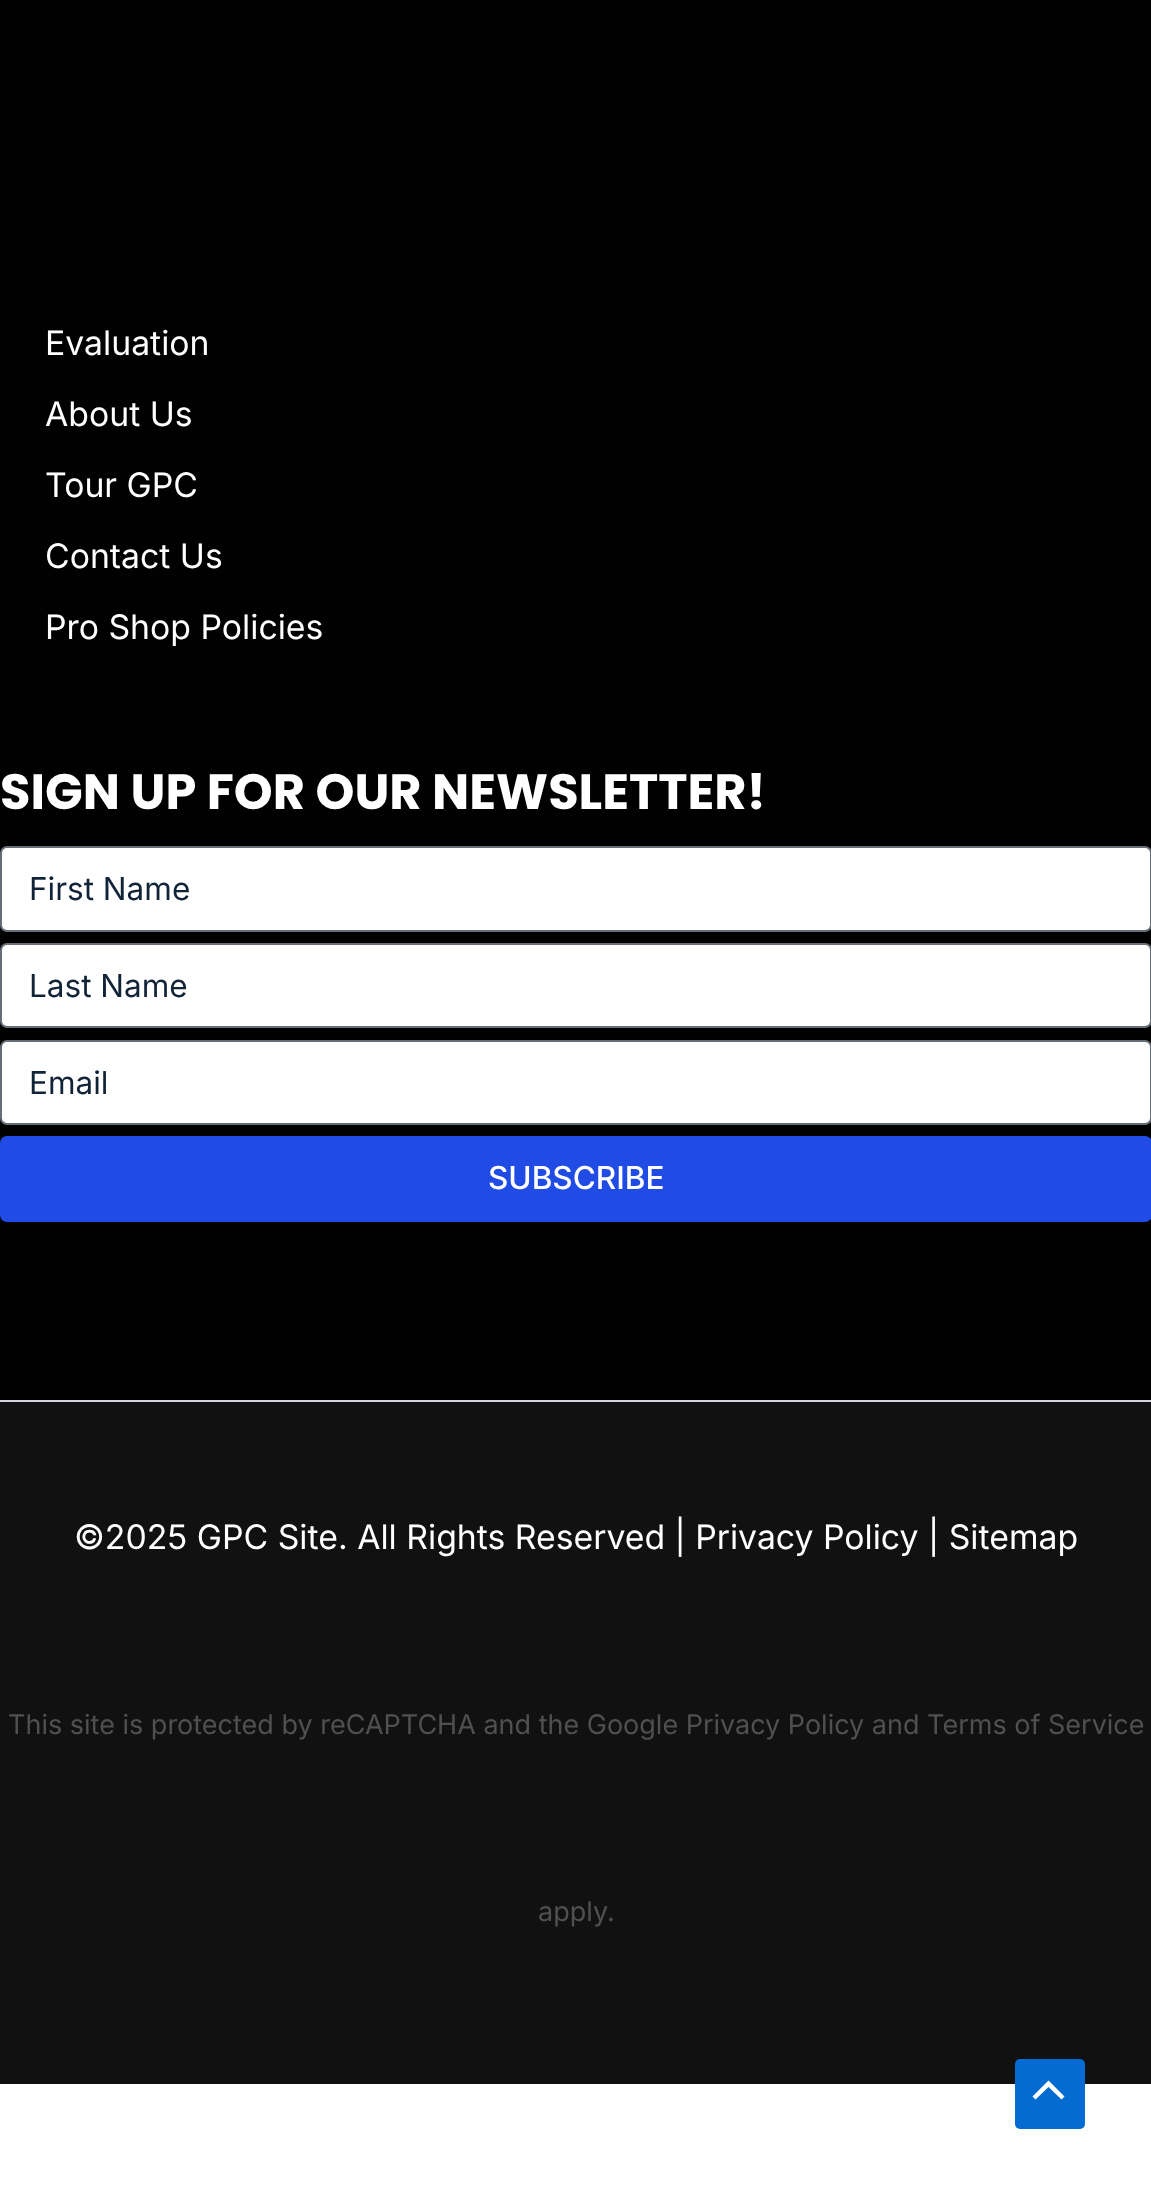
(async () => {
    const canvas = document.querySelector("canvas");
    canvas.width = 1151;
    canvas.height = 2194;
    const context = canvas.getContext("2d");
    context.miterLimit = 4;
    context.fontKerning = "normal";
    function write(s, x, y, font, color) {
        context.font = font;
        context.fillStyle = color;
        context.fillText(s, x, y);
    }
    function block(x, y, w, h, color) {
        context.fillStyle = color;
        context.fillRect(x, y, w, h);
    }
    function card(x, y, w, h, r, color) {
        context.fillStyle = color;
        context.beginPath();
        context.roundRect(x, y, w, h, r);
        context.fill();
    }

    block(0, 0, 1151, 2194, "rgb(255, 255, 255)");
    block(0, 0, 1151, 1400, "rgb(1, 1, 1)");
    write("Evaluation", 45, 355, "33.75px Inter", "rgb(255, 255, 255)");
    write("About Us", 45, 426, "33.75px Inter", "rgb(255, 255, 255)");
    write("Tour GPC", 45, 497, "33.75px Inter", "rgb(255, 255, 255)");
    write("Contact Us", 45, 568, "33.75px Inter", "rgb(255, 255, 255)");
    write("Pro Shop Policies", 45, 639, "33.75px Inter", "rgb(255, 255, 255)");
    write("SIGN UP FOR OUR NEWSLETTER!", 0, 809, "bold 49.5px Poppins", "rgb(255, 255, 255)");
    context.beginPath();
    context.roundRect(1, 847, 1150, 84, 6);
    context.fill();
    context.strokeStyle = "rgb(104, 110, 119)";
    context.lineWidth = 2;
    context.stroke();
    write("First Name", 29, 900, "31.5px Inter", "rgb(17, 35, 55)");
    context.fillStyle = "rgb(255, 255, 255)";
    context.beginPath();
    context.roundRect(1, 944, 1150, 83, 6);
    context.fill();
    context.stroke();
    write("Last Name", 29, 997, "31.5px Inter", "rgb(17, 35, 55)");
    context.fillStyle = "rgb(255, 255, 255)";
    context.beginPath();
    context.roundRect(1, 1041, 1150, 83, 6);
    context.fill();
    context.stroke();
    write("Email", 29, 1094, "31.5px Inter", "rgb(17, 35, 55)");
    card(0, 1136, 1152, 86, 7, "rgb(32, 76, 229)");
    write("SUBSCRIBE", 488, 1189, "500 31.5px Inter", "rgb(255, 255, 255)");
    block(0, 1402, 1151, 682, "rgb(17, 17, 17)");
    block(0, 1400, 1151, 2, "rgb(209, 213, 219)");
    write("©2025 GPC Site. All Rights Reserved | Privacy Policy | Sitemap", 74, 1549, "33.75px Inter", "rgb(255, 255, 255)");
    write("This site is protected by reCAPTCHA and the Google Privacy Policy and Terms of Service", 8, 1734, "27px Inter", "rgb(80, 80, 80)");
    write("apply.", 538, 1921, "27px Inter", "rgb(80, 80, 80)");
    card(1015, 2059, 70, 70, 5, "rgb(4, 107, 210)");
    context.fillStyle = "rgb(255, 255, 255)";
    context.beginPath();
    context.moveTo(1064.5, 2096.5);
    context.lineTo(1048.5, 2080.5);
    context.lineTo(1032.5, 2096.5);
    context.lineTo(1035.5, 2099.5);
    context.lineTo(1048.5, 2087);
    context.lineTo(1061.5, 2099.5);
    context.closePath();
    context.fill();
})();
